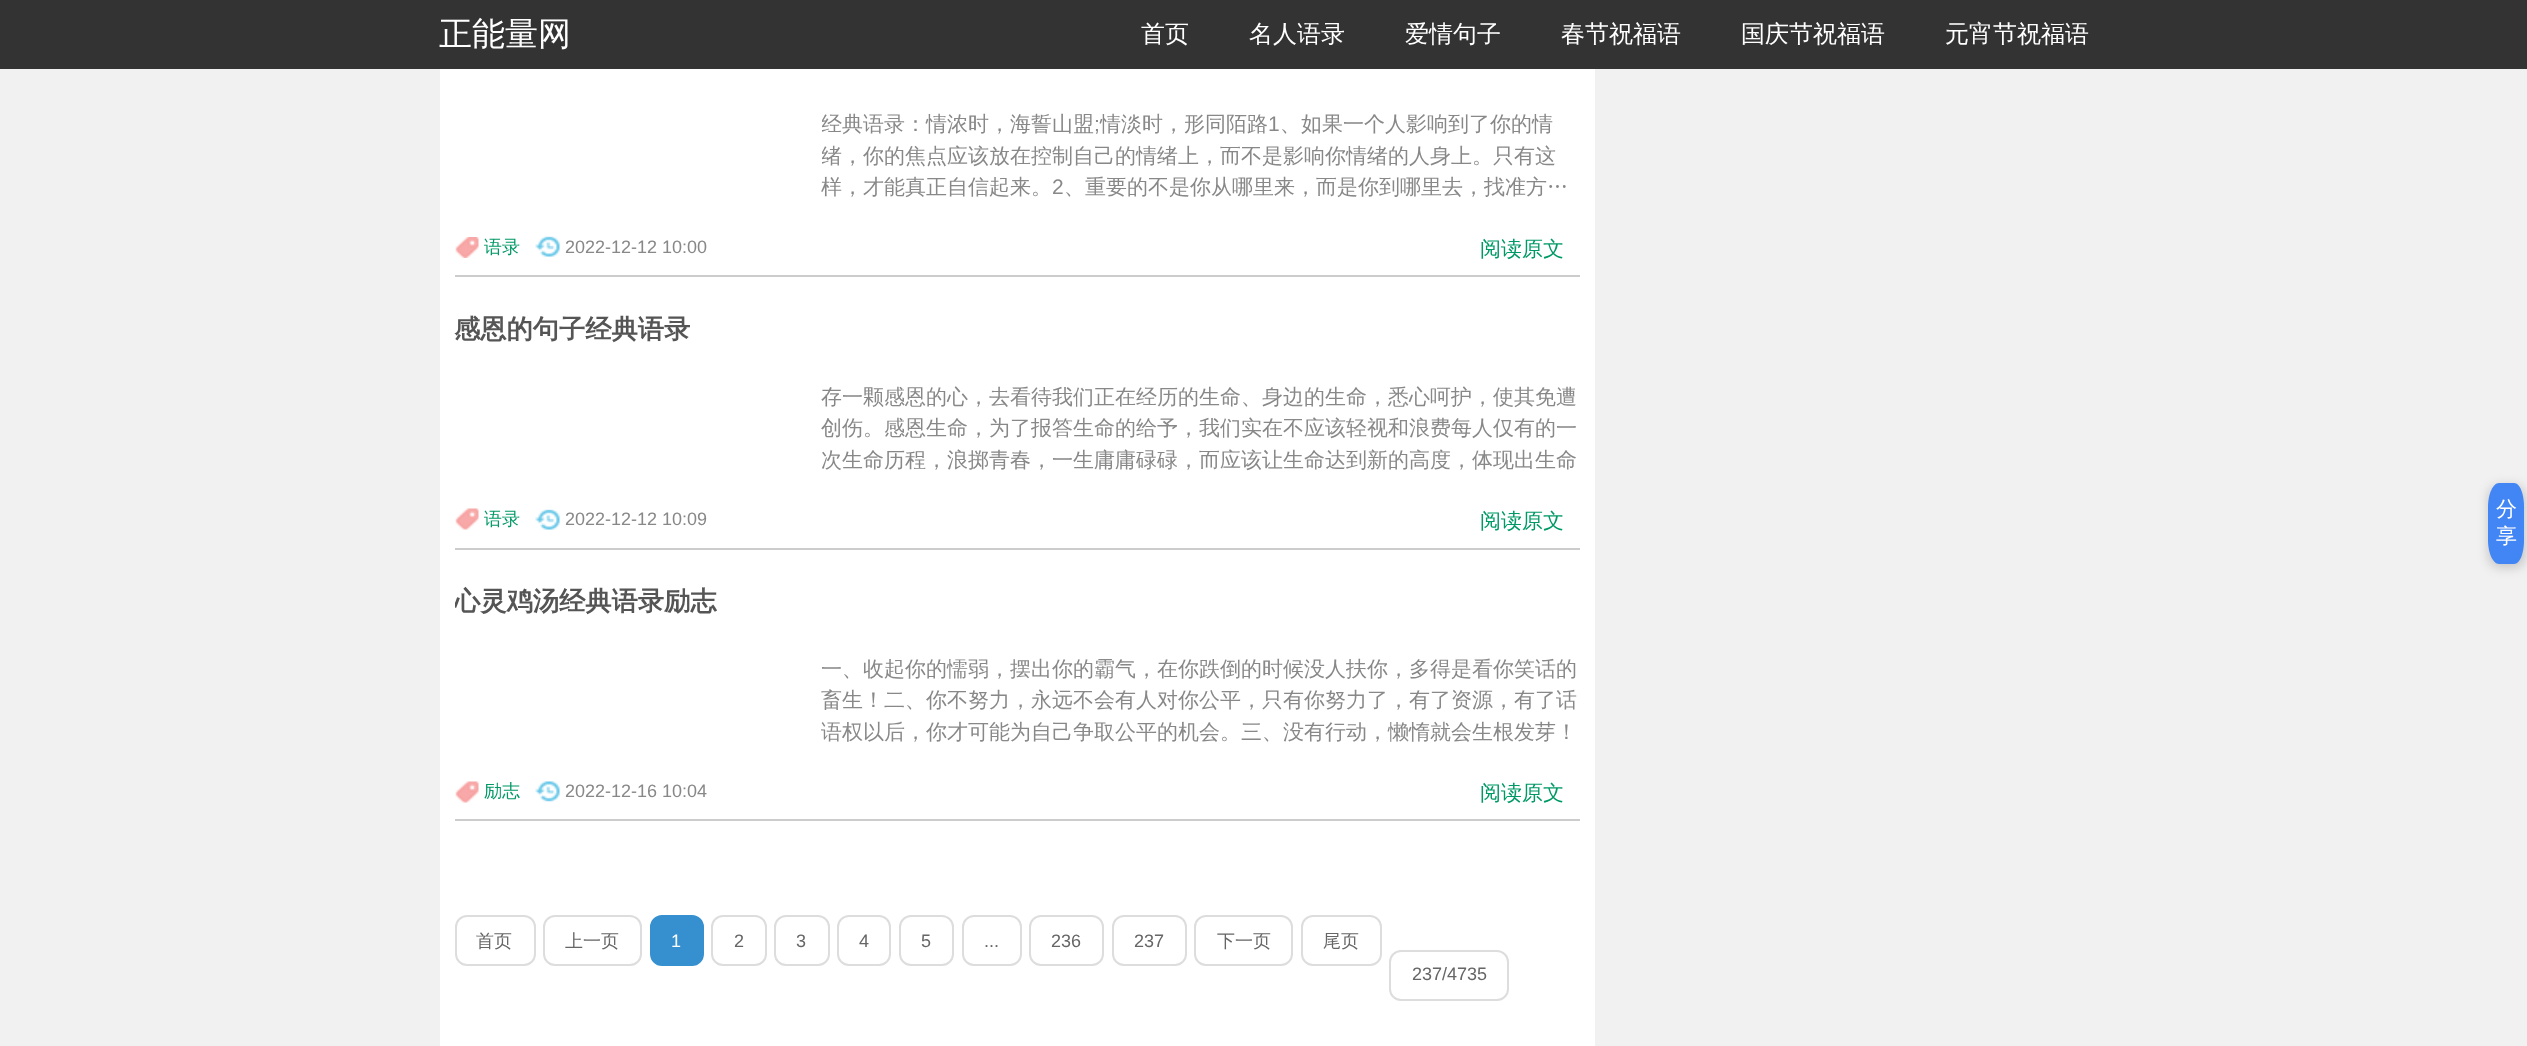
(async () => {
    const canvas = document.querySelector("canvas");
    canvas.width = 2527;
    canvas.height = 1046;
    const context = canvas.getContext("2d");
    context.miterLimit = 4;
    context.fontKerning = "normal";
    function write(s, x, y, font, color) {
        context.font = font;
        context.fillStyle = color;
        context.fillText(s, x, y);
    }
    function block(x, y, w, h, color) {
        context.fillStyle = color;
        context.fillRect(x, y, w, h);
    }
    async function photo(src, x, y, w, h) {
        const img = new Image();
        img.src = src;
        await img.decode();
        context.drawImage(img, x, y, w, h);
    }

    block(0, 0, 2527, 1046, "rgb(241, 241, 241)");
    block(0, 0, 2527, 69, "rgb(51, 51, 51)");
    write("正能量网", 439, 45, "500 33px WenQuanYi Zen Hei", "rgb(255, 255, 255)");
    write("首页", 1141, 42, "500 24px WenQuanYi Zen Hei", "rgb(255, 255, 255)");
    write("名人语录", 1249, 42, "500 24px WenQuanYi Zen Hei", "rgb(255, 255, 255)");
    write("爱情句子", 1405, 42, "500 24px WenQuanYi Zen Hei", "rgb(255, 255, 255)");
    write("春节祝福语", 1561, 42, "500 24px WenQuanYi Zen Hei", "rgb(255, 255, 255)");
    write("国庆节祝福语", 1741, 42, "500 24px WenQuanYi Zen Hei", "rgb(255, 255, 255)");
    write("元宵节祝福语", 1945, 42, "500 24px WenQuanYi Zen Hei", "rgb(255, 255, 255)");
    block(440, 69, 1155, 977, "rgb(255, 255, 255)");
    block(455, 275, 1125, 2, "rgb(204, 204, 204)");
    context.save();
    context.beginPath();
    context.rect(822, 95, 758, 109);
    context.clip();
    write("经典语录：情浓时，海誓山盟", 821, 131, "500 21px WenQuanYi Zen Hei", "rgb(136, 136, 136)");
    context.restore();
    write(";", 1094, 131, "21px Liberation Sans", "rgb(136, 136, 136)");
    write("情淡时，形同陌路", 1100, 131, "500 21px WenQuanYi Zen Hei", "rgb(136, 136, 136)");
    write("1", 1268, 131, "21px Liberation Sans", "rgb(136, 136, 136)");
    write("、如果一个人影响到了你的情", 1280, 131, "500 21px WenQuanYi Zen Hei", "rgb(136, 136, 136)");
    context.save();
    context.beginPath();
    context.rect(822, 95, 758, 109);
    context.clip();
    write("绪，你的焦点应该放在控制自己的情绪上，而不是影响你情绪的人身上。只有这", 821, 163, "500 21px WenQuanYi Zen Hei", "rgb(136, 136, 136)");
    context.restore();
    write("样，才能真正自信起来。", 821, 194, "500 21px WenQuanYi Zen Hei", "rgb(136, 136, 136)");
    write("2", 1052, 194, "21px Liberation Sans", "rgb(136, 136, 136)");
    write("、重要的不是你从哪里来，而是你到哪里去，找准方…", 1064, 194, "500 21px WenQuanYi Zen Hei", "rgb(136, 136, 136)");
    await photo("media/1.png", 455, 237, 24, 21);
    write("语录", 484, 253, "500 18px WenQuanYi Zen Hei", "rgb(0, 153, 102)");
    await photo("media/2.png", 535, 236, 25, 21);
    write("2022-12-12 10:00", 565, 253, "18px Liberation Sans", "rgb(136, 136, 136)");
    write("阅读原文", 1480, 256, "500 21px WenQuanYi Zen Hei", "rgb(0, 153, 102)");
    block(455, 548, 1125, 2, "rgb(204, 204, 204)");
    write("感恩的句子经典语录", 454, 338, "bold 26.25px WenQuanYi Zen Hei", "rgb(85, 85, 85)");
    write("存一颗感恩的心，去看待我们正在经历的生命、身边的生命，悉心呵护，使其免遭", 821, 404, "500 21px WenQuanYi Zen Hei", "rgb(136, 136, 136)");
    write("创伤。感恩生命，为了报答生命的给予，我们实在不应该轻视和浪费每人仅有的一", 821, 435, "500 21px WenQuanYi Zen Hei", "rgb(136, 136, 136)");
    write("次生命历程，浪掷青春，一生庸庸碌碌，而应该让生命达到新的高度，体现出生命", 821, 467, "500 21px WenQuanYi Zen Hei", "rgb(136, 136, 136)");
    await photo("media/3.png", 455, 508, 24, 22);
    write("语录", 484, 525, "500 18px WenQuanYi Zen Hei", "rgb(0, 153, 102)");
    await photo("media/2.png", 535, 509, 25, 21);
    write("2022-12-12 10:09", 565, 525, "18px Liberation Sans", "rgb(136, 136, 136)");
    write("阅读原文", 1480, 528, "500 21px WenQuanYi Zen Hei", "rgb(0, 153, 102)");
    block(455, 819, 1125, 2, "rgb(204, 204, 204)");
    context.save();
    context.beginPath();
    context.rect(455, 564, 1125, 255);
    context.clip();
    write("心灵鸡汤经典语录励志", 454, 610, "bold 26.25px WenQuanYi Zen Hei", "rgb(85, 85, 85)");
    context.restore();
    write("一、收起你的懦弱，摆出你的霸气，在你跌倒的时候没人扶你，多得是看你笑话的", 821, 676, "500 21px WenQuanYi Zen Hei", "rgb(136, 136, 136)");
    write("畜生！二、你不努力，永远不会有人对你公平，只有你努力了，有了资源，有了话", 821, 707, "500 21px WenQuanYi Zen Hei", "rgb(136, 136, 136)");
    write("语权以后，你才可能为自己争取公平的机会。三、没有行动，懒惰就会生根发芽！", 821, 739, "500 21px WenQuanYi Zen Hei", "rgb(136, 136, 136)");
    await photo("media/3.png", 455, 781, 24, 22);
    write("励志", 484, 797, "500 18px WenQuanYi Zen Hei", "rgb(0, 153, 102)");
    await photo("media/4.png", 535, 781, 25, 21);
    write("2022-12-16 10:04", 565, 797, "18px Liberation Sans", "rgb(136, 136, 136)");
    write("阅读原文", 1480, 800, "500 21px WenQuanYi Zen Hei", "rgb(0, 153, 102)");
    context.beginPath();
    context.roundRect(456, 916, 79, 49, 11);
    context.strokeStyle = "rgb(221, 221, 221)";
    context.lineWidth = 2;
    context.stroke();
    write("首页", 476, 947, "500 18px WenQuanYi Zen Hei", "rgb(102, 102, 102)");
    context.beginPath();
    context.roundRect(544, 916, 97, 49, 11);
    context.stroke();
    write("上一页", 565, 947, "500 18px WenQuanYi Zen Hei", "rgb(102, 102, 102)");
    context.fillStyle = "rgb(54, 144, 207)";
    context.beginPath();
    context.roundRect(651, 916, 52, 49, 11);
    context.fill();
    context.strokeStyle = "rgb(54, 144, 207)";
    context.stroke();
    write("1", 671, 947, "18px Liberation Sans", "rgb(255, 255, 255)");
    context.beginPath();
    context.roundRect(712, 916, 54, 49, 11);
    context.strokeStyle = "rgb(221, 221, 221)";
    context.stroke();
    write("2", 734, 947, "18px Liberation Sans", "rgb(102, 102, 102)");
    context.beginPath();
    context.roundRect(775, 916, 54, 49, 11);
    context.stroke();
    write("3", 796, 947, "18px Liberation Sans", "rgb(102, 102, 102)");
    context.beginPath();
    context.roundRect(838, 916, 52, 49, 11);
    context.stroke();
    write("4", 859, 947, "18px Liberation Sans", "rgb(102, 102, 102)");
    context.beginPath();
    context.roundRect(900, 916, 53, 49, 11);
    context.stroke();
    write("5", 921, 947, "18px Liberation Sans", "rgb(102, 102, 102)");
    context.beginPath();
    context.roundRect(963, 916, 58, 49, 11);
    context.stroke();
    write("...", 984, 947, "18px Liberation Sans", "rgb(102, 102, 102)");
    context.beginPath();
    context.roundRect(1030, 916, 73, 49, 11);
    context.stroke();
    write("236", 1051, 947, "18px Liberation Sans", "rgb(102, 102, 102)");
    context.beginPath();
    context.roundRect(1113, 916, 73, 49, 11);
    context.stroke();
    write("237", 1134, 947, "18px Liberation Sans", "rgb(102, 102, 102)");
    context.beginPath();
    context.roundRect(1195, 916, 97, 49, 11);
    context.stroke();
    write("下一页", 1217, 947, "500 18px WenQuanYi Zen Hei", "rgb(102, 102, 102)");
    context.beginPath();
    context.roundRect(1302, 916, 79, 49, 11);
    context.stroke();
    write("尾页", 1323, 947, "500 18px WenQuanYi Zen Hei", "rgb(102, 102, 102)");
    context.beginPath();
    context.roundRect(1390, 951, 118, 49, 11);
    context.stroke();
    write("237/4735", 1412, 980, "18px Liberation Sans", "rgb(102, 102, 102)");
    context.fillStyle = "rgba(0, 0, 0, 0.2)";
    context.filter = "blur(6px)";
    context.beginPath();
    context.roundRect(2489, 486, 36, 81, 11);
    context.fill();
    context.filter = "none";
    context.fillStyle = "rgb(66, 133, 244)";
    context.beginPath();
    context.moveTo(2499, 483);
    context.lineTo(2514, 483);
    context.bezierCurveTo(2520, 483, 2524, 494, 2524, 507);
    context.lineTo(2524, 540);
    context.bezierCurveTo(2524, 553, 2520, 564, 2514, 564);
    context.lineTo(2499, 564);
    context.bezierCurveTo(2493, 564, 2488, 553, 2488, 540);
    context.lineTo(2488, 507);
    context.bezierCurveTo(2488, 494, 2493, 483, 2499, 483);
    context.closePath();
    context.fill();
    write("分", 2496, 516, "500 21px WenQuanYi Zen Hei", "rgb(255, 255, 255)");
    write("享", 2496, 543, "500 21px WenQuanYi Zen Hei", "rgb(255, 255, 255)");
})();
